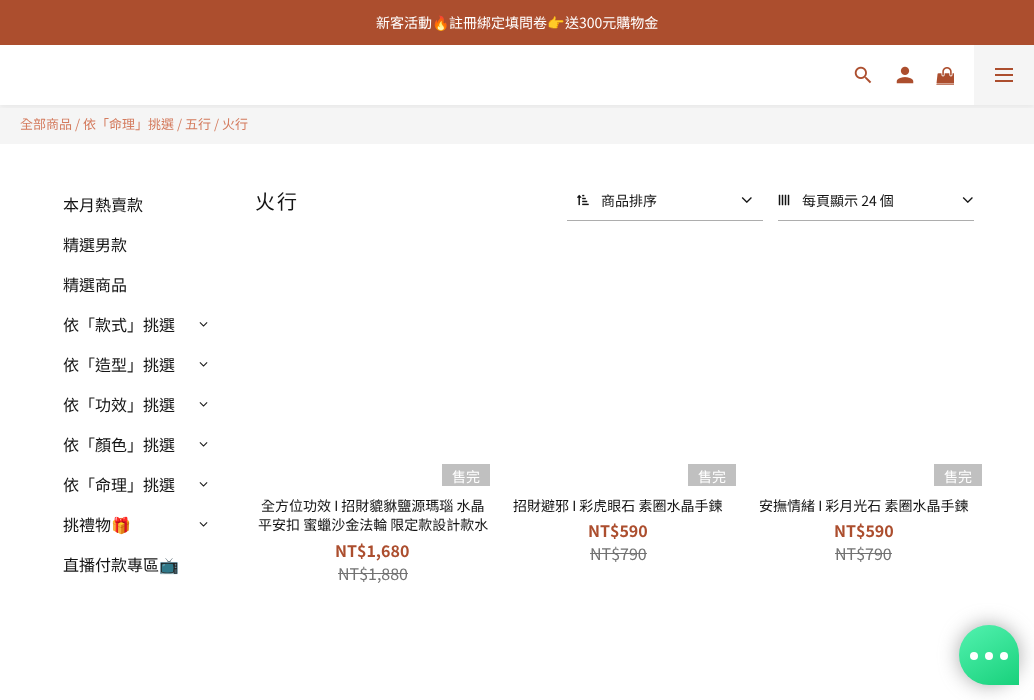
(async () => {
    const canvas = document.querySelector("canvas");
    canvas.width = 1034;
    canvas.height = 700;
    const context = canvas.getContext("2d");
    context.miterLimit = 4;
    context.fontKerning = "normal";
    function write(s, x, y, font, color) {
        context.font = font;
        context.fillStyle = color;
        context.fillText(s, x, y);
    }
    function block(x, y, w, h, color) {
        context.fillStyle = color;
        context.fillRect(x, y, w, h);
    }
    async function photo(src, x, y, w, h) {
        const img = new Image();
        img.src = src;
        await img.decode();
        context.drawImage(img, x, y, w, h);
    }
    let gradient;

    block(0, 0, 1034, 700, "rgb(255, 255, 255)");
    block(0, 0, 1034, 45, "rgb(172, 78, 46)");
    write("新客活動", 376, 28, "14px Noto Sans TC", "rgb(255, 255, 255)");
    write("🔥", 432, 28, "14px 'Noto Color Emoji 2'", "rgb(255, 255, 255)");
    write("註冊綁定填問卷", 449, 28, "14px Noto Sans TC", "rgb(255, 255, 255)");
    write("👉", 547, 28, "14px 'Noto Color Emoji 2'", "rgb(255, 255, 255)");
    write("送300元購物金", 565, 28, "14px Noto Sans TC", "rgb(255, 255, 255)");
    block(0, 105, 1034, 39, "rgb(245, 245, 245)");
    context.save();
    context.beginPath();
    context.rect(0, 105, 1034, 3);
    context.clip();
    context.fillStyle = "rgba(0, 0, 0, 0.06)";
    context.filter = "blur(3px)";
    context.beginPath();
    context.rect(0, 47, 1034, 60);
    context.fill();
    context.filter = "none";
    context.restore();
    await photo("media/1.png", 854, 66, 18, 18);
    await photo("media/2.png", 896, 66, 18, 18);
    await photo("media/3.png", 936, 67, 18, 18);
    block(974, 45, 60, 60, "rgb(245, 245, 245)");
    block(995, 74, 18, 2, "rgb(172, 78, 46)");
    block(995, 68, 18, 2, "rgb(172, 78, 46)");
    block(995, 80, 18, 2, "rgb(172, 78, 46)");
    write("全部商品", 20, 129, "13px Noto Sans TC", "rgb(212, 123, 94)");
    write("/ 依「命理」挑選", 75, 129, "13px Noto Sans TC", "rgb(212, 123, 94)");
    write("/ 五行", 177, 129, "13px Noto Sans TC", "rgb(212, 123, 94)");
    write("/ 火行", 214, 129, "13px Noto Sans TC", "rgb(212, 123, 94)");
    write("本月熱賣款", 63, 211, "16px Noto Sans TC", "rgb(20, 20, 20)");
    write("精選男款", 63, 251, "16px Noto Sans TC", "rgb(20, 20, 20)");
    write("精選商品", 63, 291, "16px Noto Sans TC", "rgb(20, 20, 20)");
    write("依「款式」挑選", 63, 331, "16px Noto Sans TC", "rgb(20, 20, 20)");
    await photo("media/4.png", 199, 322, 9, 5);
    write("依「造型」挑選", 63, 371, "16px Noto Sans TC", "rgb(20, 20, 20)");
    await photo("media/4.png", 199, 362, 9, 5);
    write("依「功效」挑選", 63, 411, "16px Noto Sans TC", "rgb(20, 20, 20)");
    await photo("media/4.png", 199, 402, 9, 5);
    write("依「顏色」挑選", 63, 451, "16px Noto Sans TC", "rgb(20, 20, 20)");
    await photo("media/4.png", 199, 442, 9, 5);
    write("依「命理」挑選", 63, 491, "16px Noto Sans TC", "rgb(20, 20, 20)");
    await photo("media/4.png", 199, 482, 9, 5);
    write("挑禮物", 63, 531, "16px Noto Sans TC", "rgb(20, 20, 20)");
    write("🎁", 111, 531, "16px Noto Color Emoji", "rgb(20, 20, 20)");
    await photo("media/4.png", 199, 522, 9, 5);
    write("直播付款專區", 63, 571, "16px Noto Sans TC", "rgb(20, 20, 20)");
    write("📺", 159, 571, "16px Noto Color Emoji", "rgb(20, 20, 20)");
    context.letterSpacing = "2px";
    write("火行", 255, 209, "20px Noto Sans TC", "rgb(20, 20, 20)");
    block(567, 220, 196, 1, "rgb(173, 173, 173)");
    await photo("media/5.png", 577, 194, 12, 12);
    context.letterSpacing = "0px";
    write("商品排序", 601, 206, "14px Noto Sans TC", "rgb(20, 20, 20)");
    await photo("media/6.png", 741, 197, 11, 6);
    block(778, 220, 196, 1, "rgb(173, 173, 173)");
    await photo("media/7.png", 778, 194, 12, 12);
    write("每頁顯示 24 個", 802, 206, "14px Noto Sans TC", "rgb(20, 20, 20)");
    await photo("media/6.png", 962, 197, 11, 6);
    block(442, 464, 48, 22, "rgb(192, 192, 192)");
    write("售完", 452, 482, "14px Noto Sans TC", "rgb(255, 255, 255)");
    write("全方位功效 I 招財貔貅鹽源瑪瑙 水晶", 261, 511, "14px Noto Sans TC", "rgb(20, 20, 20)");
    write("平安扣 蜜蠟沙金法輪 限定款設計款水", 258, 530, "14px Noto Sans TC", "rgb(20, 20, 20)");
    write("NT$1,680", 335, 557, "bold 16px Noto Sans TC", "rgb(172, 78, 46)");
    write("NT$1,880", 338, 580, "16px Noto Sans TC", "rgb(114, 114, 114)");
    block(338, 573, 70, 1, "rgb(114, 114, 114)");
    block(688, 464, 48, 22, "rgb(192, 192, 192)");
    write("售完", 698, 482, "14px Noto Sans TC", "rgb(255, 255, 255)");
    write("招財避邪 I 彩虎眼石 素圈水晶手鍊", 513, 511, "14px Noto Sans TC", "rgb(20, 20, 20)");
    write("NT$590", 588, 537, "bold 16px Noto Sans TC", "rgb(172, 78, 46)");
    write("NT$790", 590, 560, "16px Noto Sans TC", "rgb(114, 114, 114)");
    block(590, 553, 57, 1, "rgb(114, 114, 114)");
    block(934, 464, 48, 22, "rgb(192, 192, 192)");
    write("售完", 944, 482, "14px Noto Sans TC", "rgb(255, 255, 255)");
    write("安撫情緒 I 彩月光石 素圈水晶手鍊", 759, 511, "14px Noto Sans TC", "rgb(20, 20, 20)");
    write("NT$590", 834, 537, "bold 16px Noto Sans TC", "rgb(172, 78, 46)");
    write("NT$790", 835, 560, "16px Noto Sans TC", "rgb(114, 114, 114)");
    block(835, 553, 57, 1, "rgb(114, 114, 114)");
    context.fillStyle = "rgba(119, 119, 119, 0.64)";
    context.filter = "blur(10px)";
    context.beginPath();
    context.roundRect(959, 625, 60, 60, 30);
    context.fill();
    context.filter = "none";
    gradient = context.createLinearGradient(1009, 690, 969, 620);
    gradient.addColorStop(0, "rgb(25, 209, 124)");
    gradient.addColorStop(1, "rgb(82, 242, 175)");
    context.fillStyle = gradient;
    context.beginPath();
    context.roundRect(959, 625, 60, 60, [30, 30, 0, 30]);
    context.fill();
    context.fillStyle = "rgb(255, 255, 255)";
    context.beginPath();
    context.arc(974, 656, 4, 0, Math.PI * 2);
    context.fill();
    context.beginPath();
    context.arc(989, 656, 4, 0, Math.PI * 2);
    context.fill();
    context.beginPath();
    context.arc(1004, 656, 4, 0, Math.PI * 2);
    context.fill();
})();
